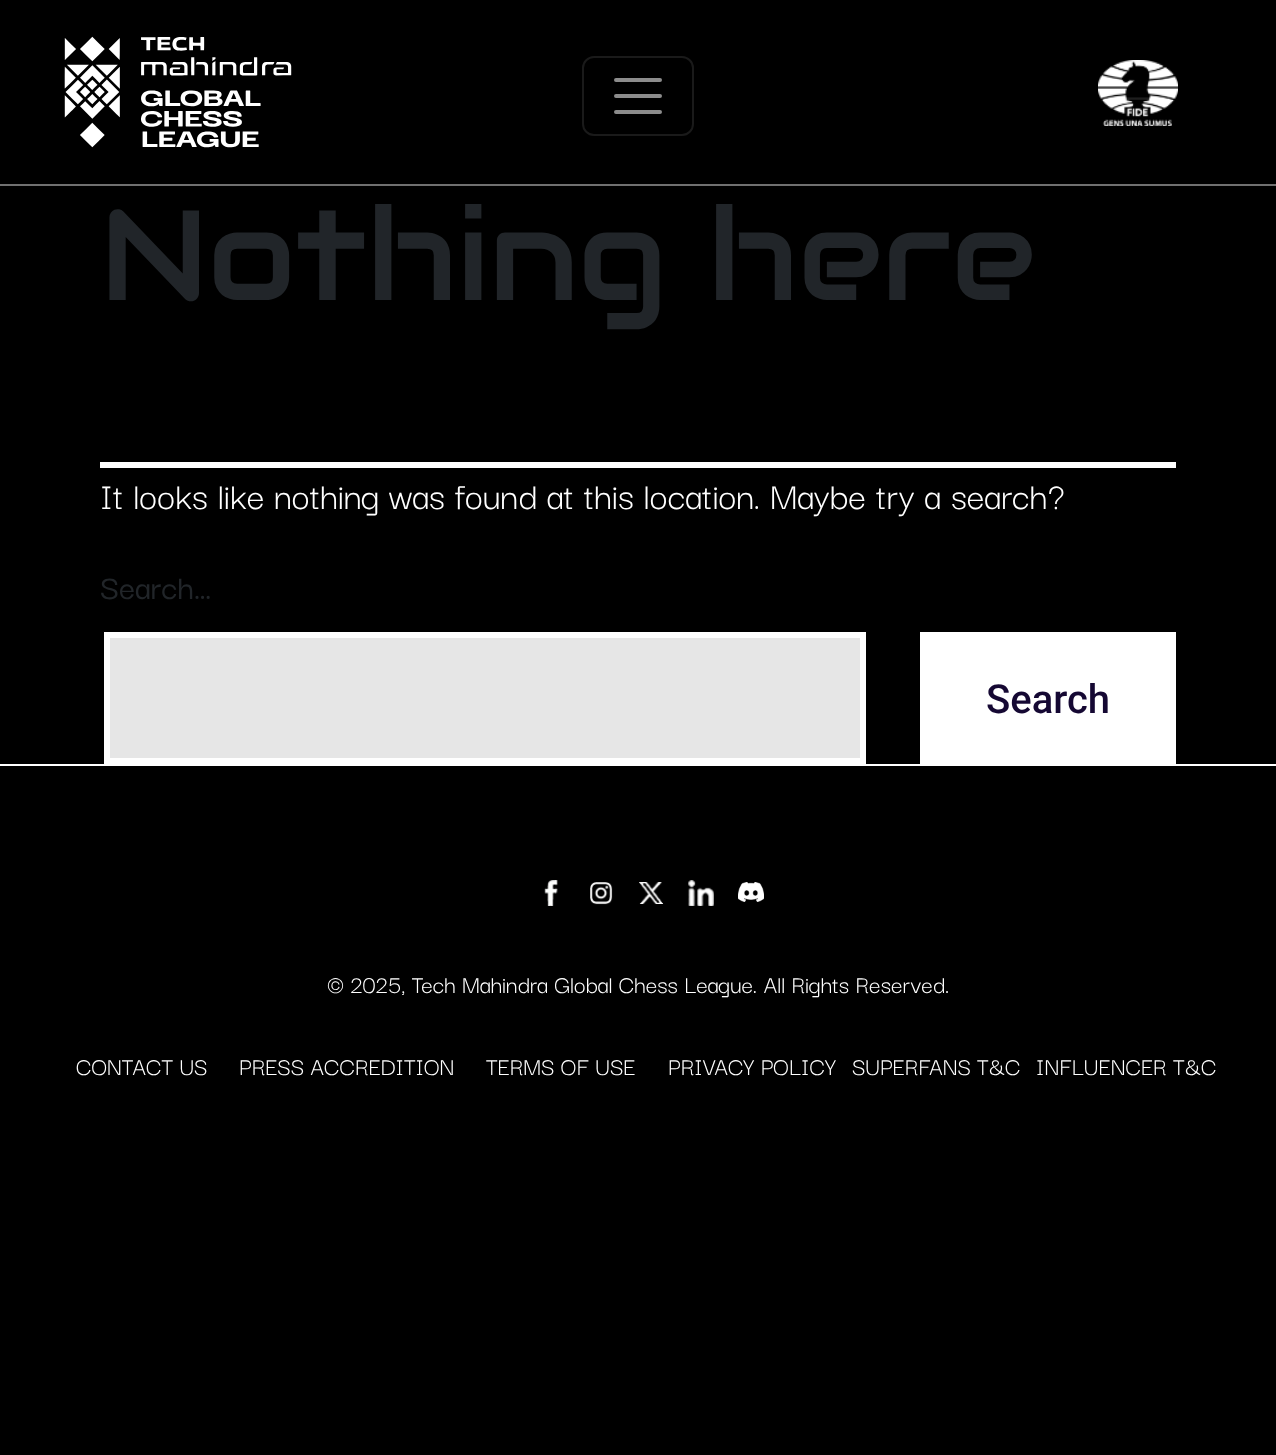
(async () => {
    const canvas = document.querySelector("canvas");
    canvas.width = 1276;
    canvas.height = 1455;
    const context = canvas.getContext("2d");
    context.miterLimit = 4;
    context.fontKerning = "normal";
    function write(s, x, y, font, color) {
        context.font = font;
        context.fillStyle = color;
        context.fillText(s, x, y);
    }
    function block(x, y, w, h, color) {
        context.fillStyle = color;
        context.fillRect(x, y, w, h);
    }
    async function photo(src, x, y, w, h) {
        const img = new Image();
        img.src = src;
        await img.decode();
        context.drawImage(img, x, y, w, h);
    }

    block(0, 0, 1276, 1455, "rgb(0, 0, 0)");
    block(0, 184, 1276, 2, "rgb(112, 112, 112)");
    await photo("media/1.png", 64, 36, 228, 112);
    context.beginPath();
    context.roundRect(583, 57, 110, 78, 11);
    context.strokeStyle = "rgb(26, 26, 26)";
    context.lineWidth = 2;
    context.stroke();
    context.beginPath();
    context.moveTo(616, 80);
    context.lineTo(660, 80);
    context.moveTo(616, 96);
    context.lineTo(660, 96);
    context.moveTo(616, 112);
    context.lineTo(660, 112);
    context.strokeStyle = "rgb(140, 140, 140)";
    context.lineWidth = 4;
    context.lineCap = "round";
    context.stroke();
    await photo("media/2.png", 1098, 60, 80, 66);
    block(100, 462, 1076, 6, "rgb(255, 255, 255)");
    write("Nothing here", 100, 300, "128px Audiowide", "rgb(33, 37, 41)");
    write("It looks like nothing was found at this location. Maybe try a search?", 100, 509, "40px Darker Grotesque", "rgb(255, 255, 255)");
    write("Search…", 100, 599, "500 36px Darker Grotesque", "rgb(33, 37, 41)");
    context.fillStyle = "rgb(230, 230, 230)";
    context.beginPath();
    context.rect(107, 635, 756, 126);
    context.fill();
    context.strokeStyle = "rgb(255, 255, 255)";
    context.lineWidth = 6;
    context.stroke();
    block(920, 632, 256, 132, "rgb(255, 255, 255)");
    write("Search", 986, 713, "500 40px Roboto", "rgb(21, 8, 51)");
    block(0, 764, 1276, 2, "rgb(255, 255, 255)");
    await photo("media/3.png", 544, 880, 14, 26);
    await photo("media/4.png", 590, 882, 23, 23);
    await photo("media/5.png", 639, 882, 25, 22);
    await photo("media/6.png", 688, 880, 26, 26);
    await photo("media/7.png", 738, 882, 26, 20);
    write("© 2025, Tech Mahindra Global Chess League. All Rights Reserved.", 327, 993, "26px Darker Grotesque", "rgb(255, 255, 255)");
    write("CONTACT US", 76, 1075, "26px Darker Grotesque", "rgb(255, 255, 255)");
    write("PRESS ACCREDITION", 239, 1075, "26px Darker Grotesque", "rgb(255, 255, 255)");
    write("TERMS OF USE", 486, 1075, "26px Darker Grotesque", "rgb(255, 255, 255)");
    write("PRIVACY POLICY", 668, 1075, "26px Darker Grotesque", "rgb(255, 255, 255)");
    write("SUPERFANS T&C", 852, 1075, "26px Darker Grotesque", "rgb(255, 255, 255)");
    write("INFLUENCER T&C", 1036, 1075, "26px Darker Grotesque", "rgb(255, 255, 255)");
})();
